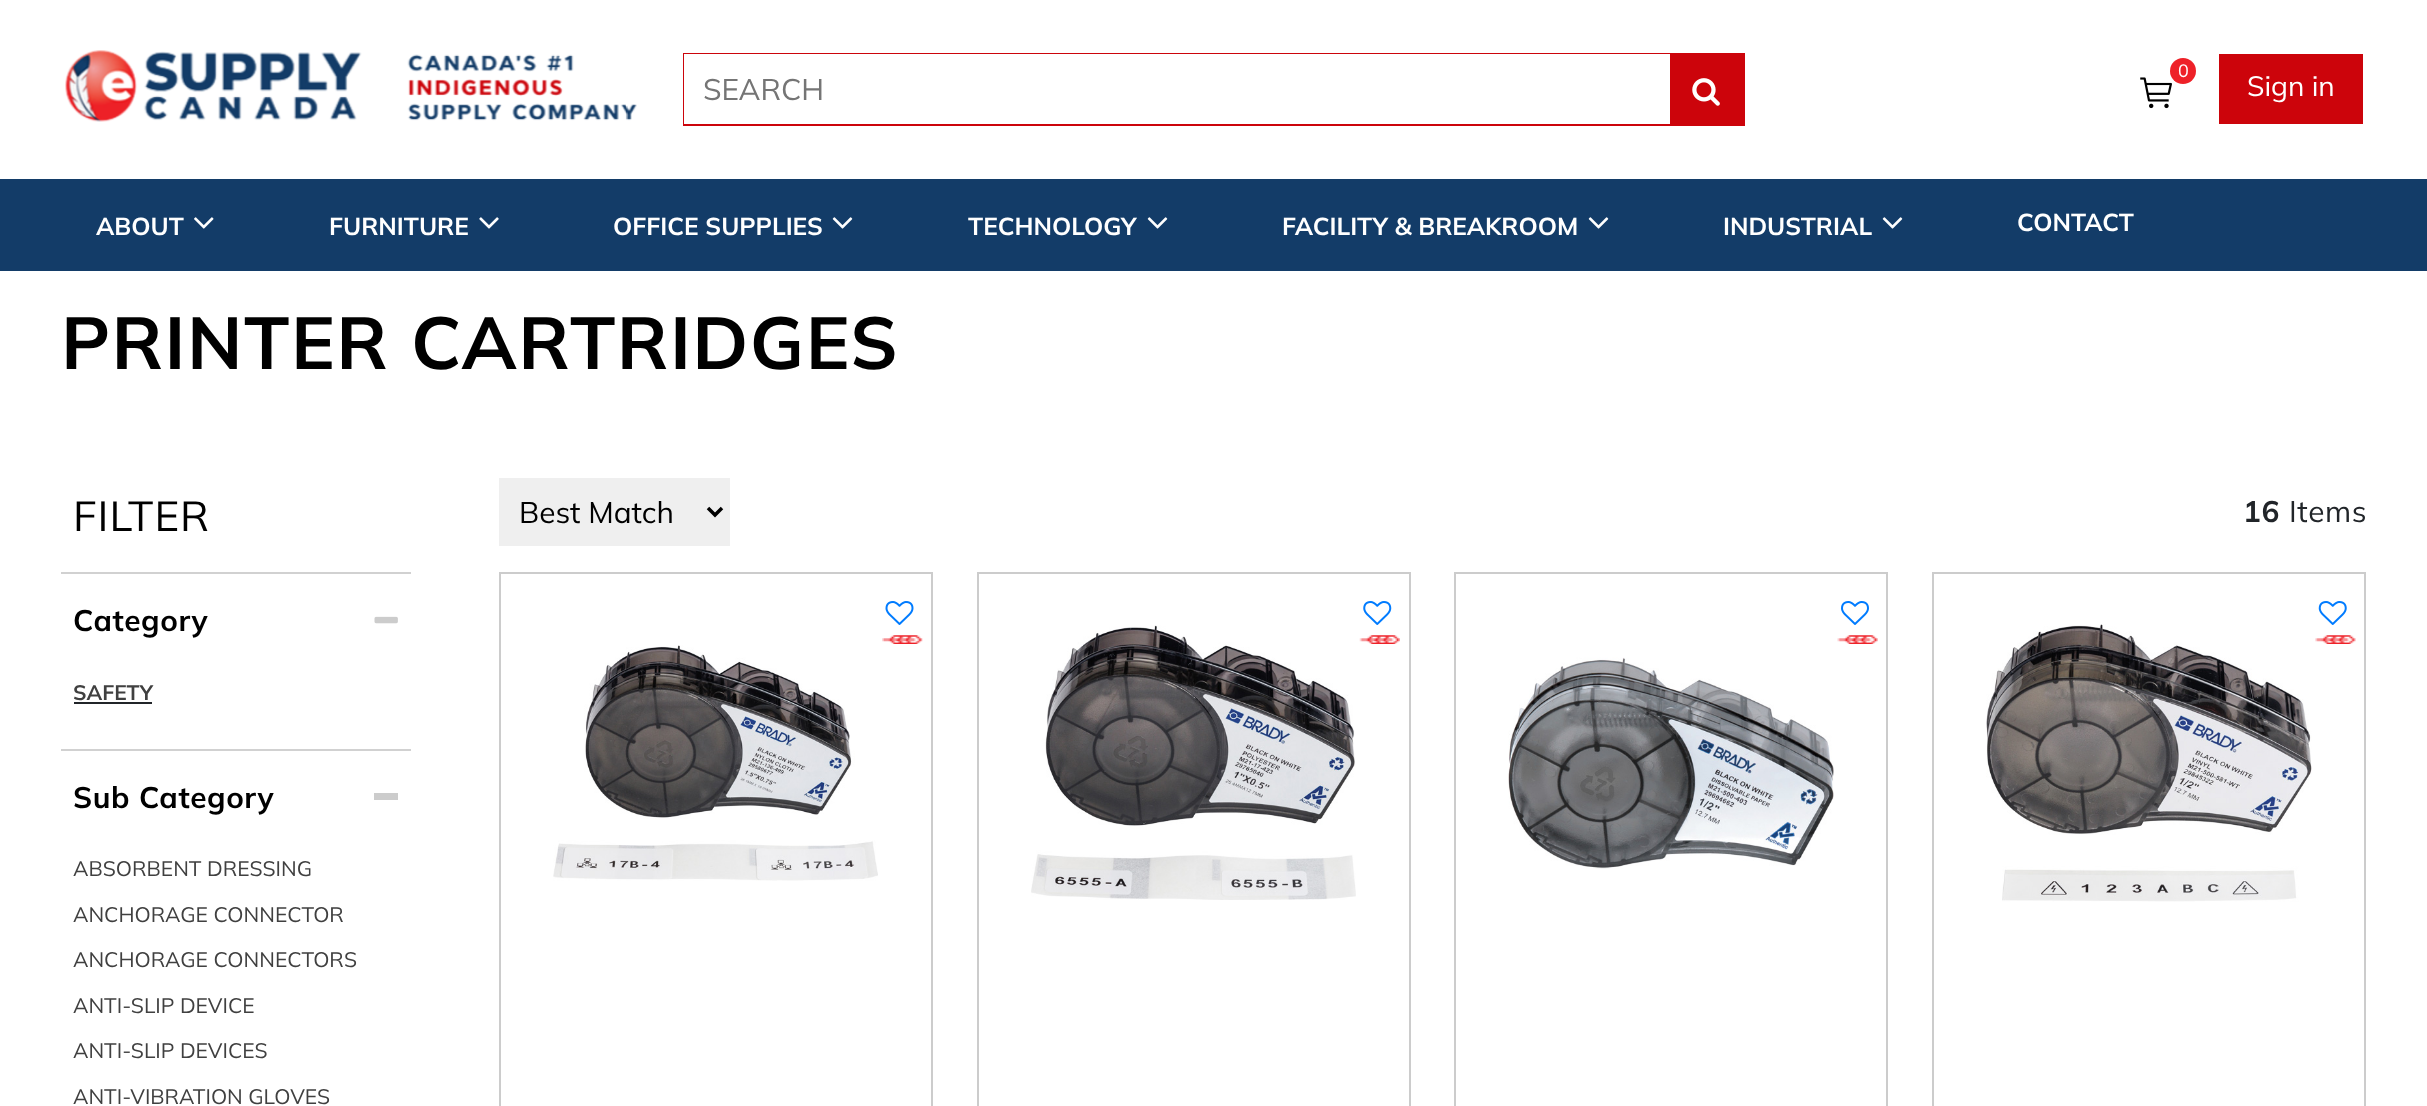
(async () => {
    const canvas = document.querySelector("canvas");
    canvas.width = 2427;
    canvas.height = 1106;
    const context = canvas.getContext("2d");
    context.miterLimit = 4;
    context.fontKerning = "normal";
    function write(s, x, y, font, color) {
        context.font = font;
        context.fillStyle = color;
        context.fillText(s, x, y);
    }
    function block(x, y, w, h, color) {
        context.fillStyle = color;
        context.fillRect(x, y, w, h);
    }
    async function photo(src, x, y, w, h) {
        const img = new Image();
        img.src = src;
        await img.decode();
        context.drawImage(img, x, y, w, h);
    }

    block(0, 0, 2427, 1106, "rgb(255, 255, 255)");
    await photo("media/1.png", 65, 50, 572, 72);
    context.strokeStyle = "rgb(204, 4, 11)";
    context.lineWidth = 2;
    context.strokeRect(684, 54, 1060, 71);
    block(684, 54, 986, 70, "rgb(255, 255, 255)");
    write("SEARCH", 703, 100, "29.75px Mulish", "rgb(117, 117, 117)");
    block(1670, 55, 73, 69, "rgb(204, 4, 11)");
    await photo("media/2.png", 1692, 78, 28, 28);
    await photo("media/3.png", 2140, 77, 32, 32);
    context.fillStyle = "rgb(238, 33, 40)";
    context.beginPath();
    context.arc(2183, 71, 13, 0, Math.PI * 2);
    context.fill();
    write("0", 2178, 77, "18px Mulish", "rgb(255, 255, 255)");
    block(2219, 54, 144, 70, "rgb(204, 4, 11)");
    write("Sign in", 2247, 96, "28px Mulish", "rgb(255, 255, 255)");
    block(0, 179, 2427, 92, "rgb(19, 60, 104)");
    write("ABOUT", 96, 235, "bold 24.5px Mulish", "rgb(255, 255, 255)");
    await photo("media/4.png", 194, 217, 20, 12);
    write("FURNITURE", 329, 235, "bold 24.5px Mulish", "rgb(255, 255, 255)");
    await photo("media/5.png", 479, 217, 20, 12);
    write("OFFICE SUPPLIES", 613, 235, "bold 24.5px Mulish", "rgb(255, 255, 255)");
    await photo("media/6.png", 832, 217, 21, 12);
    write("TECHNOLOGY", 968, 235, "bold 24.5px Mulish", "rgb(255, 255, 255)");
    await photo("media/6.png", 1147, 217, 21, 12);
    write("FACILITY & BREAKROOM", 1282, 235, "bold 24.5px Mulish", "rgb(255, 255, 255)");
    await photo("media/6.png", 1588, 217, 21, 12);
    write("INDUSTRIAL", 1723, 235, "bold 24.5px Mulish", "rgb(255, 255, 255)");
    await photo("media/6.png", 1882, 217, 21, 12);
    write("CONTACT", 2017, 231, "bold 24.5px Mulish", "rgb(255, 255, 255)");
    context.letterSpacing = "1.5px";
    write("PRINTER CARTRIDGES", 61, 369, "bold 73.5px Mulish", "rgb(0, 0, 0)");
    context.letterSpacing = "1px";
    write("FILTER", 73, 531, "42px Mulish", "rgb(0, 0, 0)");
    block(61, 572, 350, 2, "rgb(209, 209, 209)");
    context.letterSpacing = "0.6px";
    write("Category", 73, 631, "bold 29.75px Mulish", "rgb(0, 0, 0)");
    await photo("media/7.png", 374, 616, 24, 8);
    context.letterSpacing = "0px";
    write("SAFETY", 73, 700, "bold 21px Mulish", "rgb(64, 64, 64)");
    block(74, 702, 78, 2, "rgb(33, 37, 41)");
    block(61, 749, 350, 2, "rgb(209, 209, 209)");
    context.letterSpacing = "0.6px";
    write("Sub Category", 73, 808, "bold 29.75px Mulish", "rgb(0, 0, 0)");
    block(374, 793, 24, 7, "rgb(204, 204, 204)");
    context.letterSpacing = "0px";
    write("ABSORBENT DRESSING", 73, 876, "21px Mulish", "rgb(64, 64, 64)");
    write("ANCHORAGE CONNECTOR", 73, 922, "21px Mulish", "rgb(64, 64, 64)");
    write("ANCHORAGE CONNECTORS", 73, 967, "21px Mulish", "rgb(64, 64, 64)");
    write("ANTI-SLIP DEVICE", 73, 1013, "21px Mulish", "rgb(64, 64, 64)");
    write("ANTI-SLIP DEVICES", 73, 1058, "21px Mulish", "rgb(64, 64, 64)");
    write("ANTI-VIBRATION GLOVES", 73, 1104, "21px Mulish", "rgb(64, 64, 64)");
    block(499, 478, 231, 68, "rgb(239, 239, 239)");
    context.beginPath();
    context.moveTo(708, 508);
    context.lineTo(715, 515);
    context.lineTo(722, 508);
    context.strokeStyle = "rgb(0, 0, 0)";
    context.lineWidth = 3.5;
    context.stroke();
    write("Best Match", 519, 523, "29.75px Mulish", "rgb(0, 0, 0)");
    context.letterSpacing = "0.6px";
    write("16", 2243, 522, "bold 29.75px Mulish", "rgb(33, 37, 41)");
    write("Items", 2289, 522, "29.75px Mulish", "rgb(33, 37, 41)");
    context.strokeStyle = "rgb(204, 204, 204)";
    context.lineWidth = 2;
    context.strokeRect(500, 573, 432, 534);
    await photo("media/8.png", 885, 601, 29, 24);
    await photo("media/9.png", 882, 635, 41, 9);
    await photo("media/10.png", 553, 645, 325, 236);
    context.strokeRect(978, 573, 432, 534);
    await photo("media/11.png", 1363, 601, 29, 24);
    await photo("media/12.png", 1031, 625, 325, 275);
    await photo("media/13.png", 1359, 635, 41, 9);
    context.strokeRect(1455, 573, 432, 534);
    await photo("media/14.png", 1841, 601, 28, 24);
    await photo("media/15.png", 1837, 635, 41, 9);
    await photo("media/16.png", 1508, 657, 326, 212);
    context.strokeRect(1933, 573, 432, 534);
    await photo("media/17.png", 2318, 601, 29, 24);
    await photo("media/18.png", 1986, 624, 326, 278);
    await photo("media/19.png", 2315, 635, 41, 9);
})();
